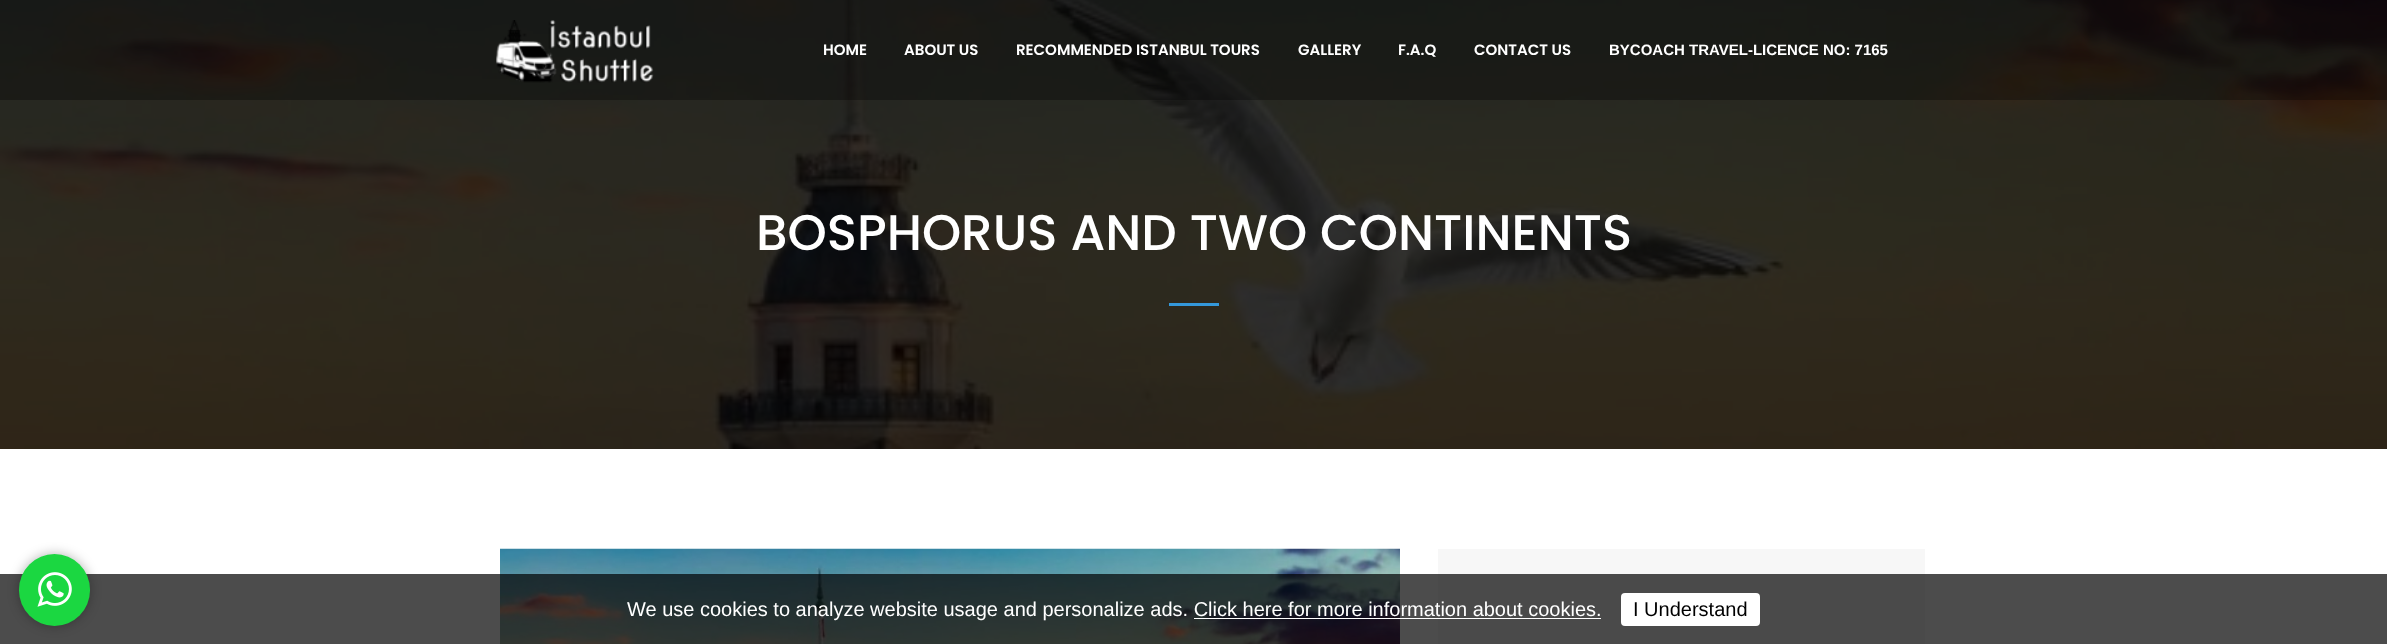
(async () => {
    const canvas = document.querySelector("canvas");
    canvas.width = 2387;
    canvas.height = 644;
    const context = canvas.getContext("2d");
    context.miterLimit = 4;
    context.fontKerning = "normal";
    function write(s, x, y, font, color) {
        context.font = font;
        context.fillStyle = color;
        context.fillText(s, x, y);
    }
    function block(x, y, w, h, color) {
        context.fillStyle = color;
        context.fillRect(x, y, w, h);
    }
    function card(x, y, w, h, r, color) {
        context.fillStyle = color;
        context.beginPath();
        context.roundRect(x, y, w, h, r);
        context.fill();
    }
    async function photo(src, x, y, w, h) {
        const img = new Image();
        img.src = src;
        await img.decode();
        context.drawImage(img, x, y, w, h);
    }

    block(0, 0, 2387, 644, "rgb(255, 255, 255)");
    await photo("media/2.png", 0, 0, 2387, 449);
    block(0, 0, 2387, 100, "rgba(0, 0, 0, 0.3)");
    await photo("media/1.png", 496, 20, 158, 63);
    write("HOME", 823, 55, "600 15px Poppins", "rgb(255, 255, 255)");
    write("ABOUT US", 904, 55, "600 15px Poppins", "rgb(255, 255, 255)");
    write("RECOMMENDED ISTANBUL TOURS", 1016, 55, "600 15px Poppins", "rgb(255, 255, 255)");
    write("GALLERY", 1298, 55, "600 15px Poppins", "rgb(255, 255, 255)");
    write("F.A.Q", 1398, 55, "600 15px Poppins", "rgb(255, 255, 255)");
    write("CONTACT US", 1474, 55, "600 15px Poppins", "rgb(255, 255, 255)");
    write("BYCOACH TRAVEL-LICENCE NO: 7165", 1609, 55, "bold 15px Liberation Sans", "rgb(255, 255, 255)");
    write("BOSPHORUS AND TWO CONTINENTS", 756, 250, "500 50px Poppins", "rgb(255, 255, 255)");
    block(1169, 303, 50, 3, "rgb(52, 152, 219)");
    await photo("media/3.png", 500, 548, 900, 96);
    block(1438, 549, 487, 95, "rgb(247, 247, 247)");
    block(0, 574, 2387, 70, "rgba(0, 0, 0, 0.7)");
    context.fillStyle = "rgba(0, 0, 0, 0.3)";
    context.filter = "blur(6px)";
    context.beginPath();
    context.roundRect(19, 554, 71, 72, 35.5);
    context.fill();
    context.filter = "none";
    card(19, 554, 71, 72, 35.5, "rgb(27, 215, 65)");
    await photo("media/4.png", 37, 572, 35, 35);
    write("We use cookies to analyze website usage and personalize ads. Click here for more information about cookies.", 627, 616, "20px Liberation Sans", "rgb(255, 255, 255)");
    card(1621, 593, 139, 33, 4, "rgb(255, 255, 255)");
    write("I Understand", 1633, 616, "20px Liberation Sans", "rgb(0, 0, 0)");
    block(1194, 618, 407, 1, "rgb(255, 255, 255)");
})();
